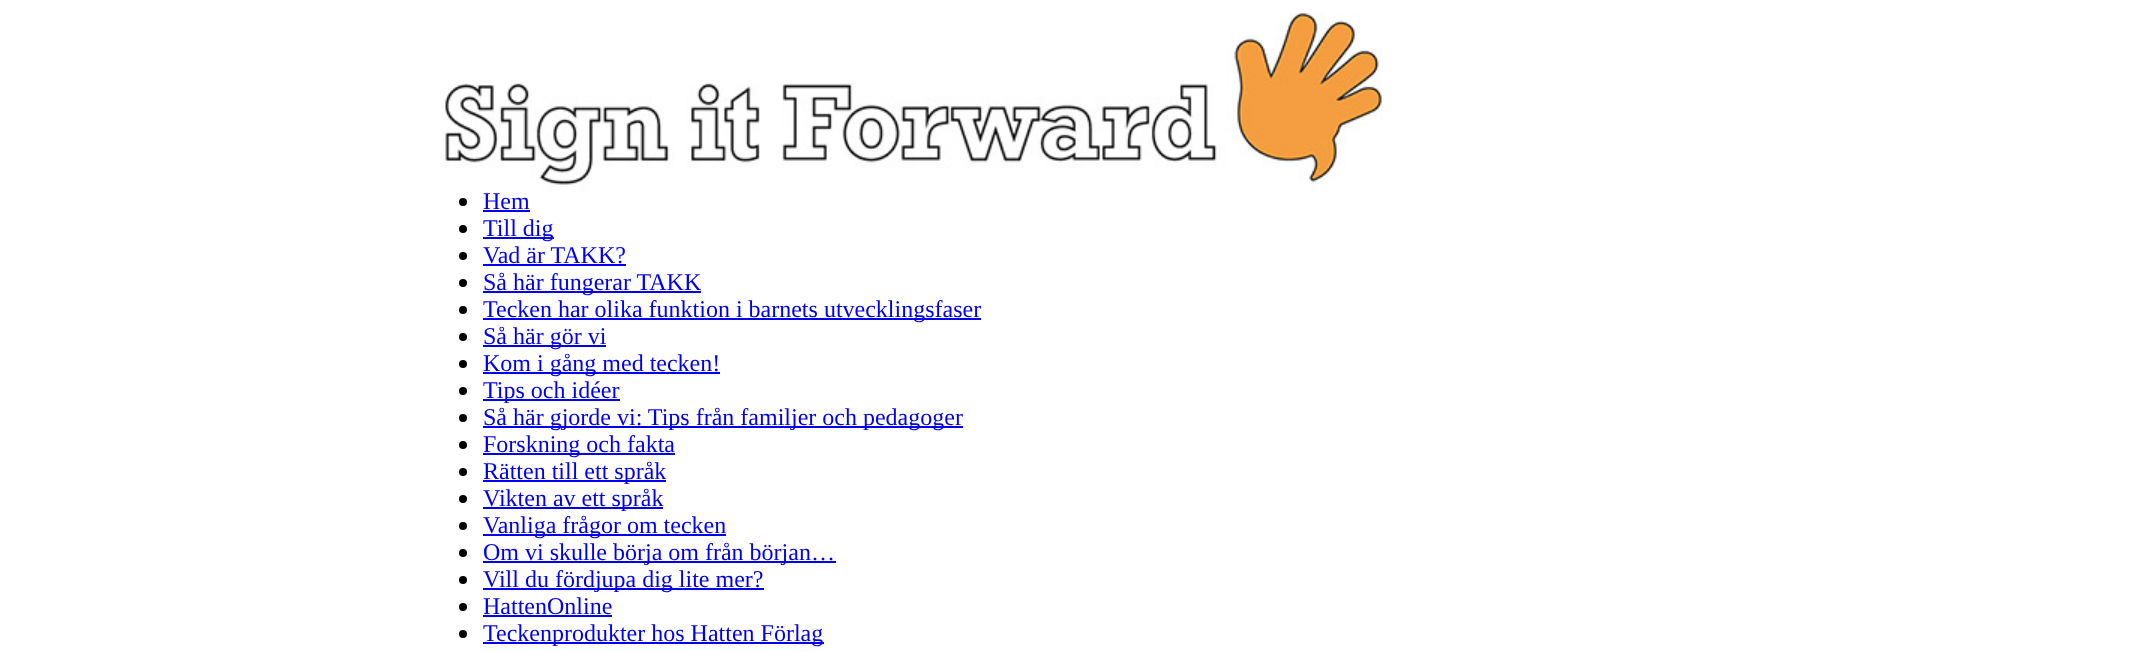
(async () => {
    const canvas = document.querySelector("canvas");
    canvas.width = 2135;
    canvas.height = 651;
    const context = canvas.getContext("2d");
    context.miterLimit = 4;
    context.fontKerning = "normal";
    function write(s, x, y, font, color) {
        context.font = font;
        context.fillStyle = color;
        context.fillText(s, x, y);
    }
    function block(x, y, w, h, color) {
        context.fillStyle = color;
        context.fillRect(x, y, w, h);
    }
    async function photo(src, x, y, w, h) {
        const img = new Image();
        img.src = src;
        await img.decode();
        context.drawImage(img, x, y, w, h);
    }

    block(0, 0, 2135, 651, "rgb(255, 255, 255)");
    await photo("media/1.png", 441, 12, 942, 180);
    context.fillStyle = "rgb(0, 0, 0)";
    context.beginPath();
    context.arc(463, 202, 4, 0, Math.PI * 2);
    context.fill();
    write("Hem", 483, 209, "24px Liberation Serif", "rgb(0, 0, 238)");
    block(483, 210, 47, 2, "rgb(0, 0, 238)");
    context.fillStyle = "rgb(0, 0, 0)";
    context.beginPath();
    context.arc(463, 229, 4, 0, Math.PI * 2);
    context.fill();
    block(483, 237, 71, 2, "rgb(0, 0, 238)");
    write("Till dig", 483, 236, "24px Liberation Serif", "rgb(0, 0, 238)");
    context.fillStyle = "rgb(0, 0, 0)";
    context.beginPath();
    context.arc(463, 256, 4, 0, Math.PI * 2);
    context.fill();
    write("Vad är TAKK?", 483, 263, "24px Liberation Serif", "rgb(0, 0, 238)");
    block(483, 264, 143, 2, "rgb(0, 0, 238)");
    context.fillStyle = "rgb(0, 0, 0)";
    context.beginPath();
    context.arc(463, 283, 4, 0, Math.PI * 2);
    context.fill();
    block(483, 291, 218, 2, "rgb(0, 0, 238)");
    write("Så här fungerar TAKK", 483, 290, "24px Liberation Serif", "rgb(0, 0, 238)");
    context.fillStyle = "rgb(0, 0, 0)";
    context.beginPath();
    context.arc(463, 310, 4, 0, Math.PI * 2);
    context.fill();
    block(483, 318, 498, 2, "rgb(0, 0, 238)");
    write("Tecken har olika funktion i barnets utvecklingsfaser", 483, 317, "24px Liberation Serif", "rgb(0, 0, 238)");
    context.fillStyle = "rgb(0, 0, 0)";
    context.beginPath();
    context.arc(463, 337, 4, 0, Math.PI * 2);
    context.fill();
    block(483, 345, 123, 2, "rgb(0, 0, 238)");
    write("Så här gör vi", 483, 344, "24px Liberation Serif", "rgb(0, 0, 238)");
    context.fillStyle = "rgb(0, 0, 0)";
    context.beginPath();
    context.arc(463, 364, 4, 0, Math.PI * 2);
    context.fill();
    block(483, 372, 237, 2, "rgb(0, 0, 238)");
    write("Kom i gång med tecken!", 483, 371, "24px Liberation Serif", "rgb(0, 0, 238)");
    context.fillStyle = "rgb(0, 0, 0)";
    context.beginPath();
    context.arc(463, 391, 4, 0, Math.PI * 2);
    context.fill();
    block(483, 399, 137, 2, "rgb(0, 0, 238)");
    write("Tips och idéer", 483, 398, "24px Liberation Serif", "rgb(0, 0, 238)");
    context.fillStyle = "rgb(0, 0, 0)";
    context.beginPath();
    context.arc(463, 418, 4, 0, Math.PI * 2);
    context.fill();
    block(483, 426, 480, 2, "rgb(0, 0, 238)");
    write("Så här gjorde vi: Tips från familjer och pedagoger", 483, 425, "24px Liberation Serif", "rgb(0, 0, 238)");
    context.fillStyle = "rgb(0, 0, 0)";
    context.beginPath();
    context.arc(463, 445, 4, 0, Math.PI * 2);
    context.fill();
    block(483, 453, 192, 2, "rgb(0, 0, 238)");
    write("Forskning och fakta", 483, 452, "24px Liberation Serif", "rgb(0, 0, 238)");
    context.fillStyle = "rgb(0, 0, 0)";
    context.beginPath();
    context.arc(463, 472, 4, 0, Math.PI * 2);
    context.fill();
    block(483, 480, 183, 2, "rgb(0, 0, 238)");
    write("Rätten till ett språk", 483, 479, "24px Liberation Serif", "rgb(0, 0, 238)");
    context.fillStyle = "rgb(0, 0, 0)";
    context.beginPath();
    context.arc(463, 499, 4, 0, Math.PI * 2);
    context.fill();
    block(483, 507, 180, 2, "rgb(0, 0, 238)");
    write("Vikten av ett språk", 483, 506, "24px Liberation Serif", "rgb(0, 0, 238)");
    context.fillStyle = "rgb(0, 0, 0)";
    context.beginPath();
    context.arc(463, 526, 4, 0, Math.PI * 2);
    context.fill();
    block(483, 534, 243, 2, "rgb(0, 0, 238)");
    write("Vanliga frågor om tecken", 483, 533, "24px Liberation Serif", "rgb(0, 0, 238)");
    context.fillStyle = "rgb(0, 0, 0)";
    context.beginPath();
    context.arc(463, 553, 4, 0, Math.PI * 2);
    context.fill();
    block(483, 561, 353, 2, "rgb(0, 0, 238)");
    write("Om vi skulle börja om från början…", 483, 560, "24px Liberation Serif", "rgb(0, 0, 238)");
    context.fillStyle = "rgb(0, 0, 0)";
    context.beginPath();
    context.arc(463, 580, 4, 0, Math.PI * 2);
    context.fill();
    block(483, 588, 281, 2, "rgb(0, 0, 238)");
    write("Vill du fördjupa dig lite mer?", 483, 587, "24px Liberation Serif", "rgb(0, 0, 238)");
    context.fillStyle = "rgb(0, 0, 0)";
    context.beginPath();
    context.arc(463, 607, 4, 0, Math.PI * 2);
    context.fill();
    write("HattenOnline", 483, 614, "24px Liberation Serif", "rgb(0, 0, 238)");
    block(483, 615, 129, 2, "rgb(0, 0, 238)");
    context.fillStyle = "rgb(0, 0, 0)";
    context.beginPath();
    context.arc(463, 634, 4, 0, Math.PI * 2);
    context.fill();
    block(483, 642, 341, 2, "rgb(0, 0, 238)");
    write("Teckenprodukter hos Hatten Förlag", 483, 641, "24px Liberation Serif", "rgb(0, 0, 238)");
})();
